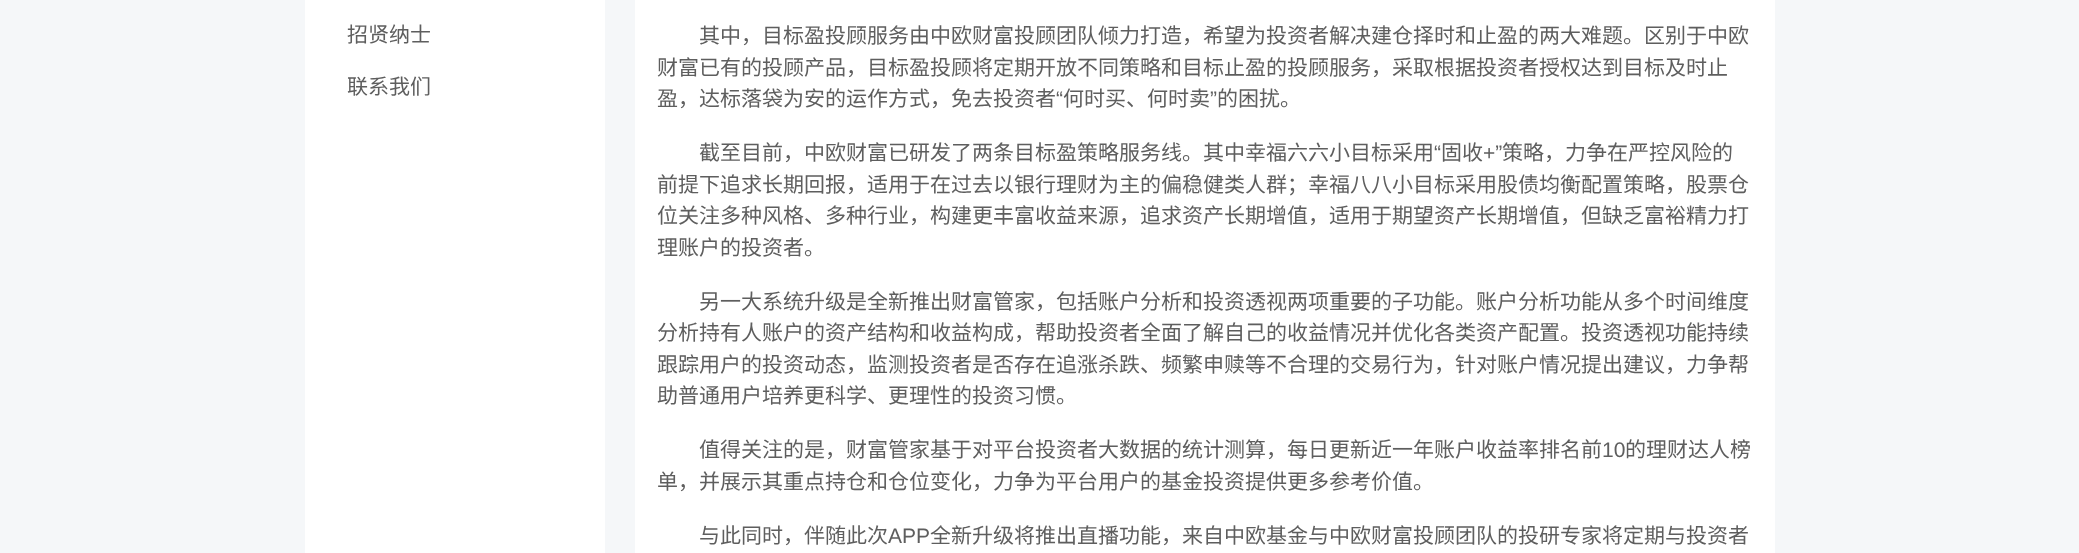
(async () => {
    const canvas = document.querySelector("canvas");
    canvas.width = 2079;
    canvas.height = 553;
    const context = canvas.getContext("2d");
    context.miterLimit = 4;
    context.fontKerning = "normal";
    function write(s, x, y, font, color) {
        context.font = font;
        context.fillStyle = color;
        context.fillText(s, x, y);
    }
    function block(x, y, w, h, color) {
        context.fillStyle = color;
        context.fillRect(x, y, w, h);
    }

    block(0, 0, 2079, 553, "rgb(245, 247, 249)");
    block(305, 0, 300, 553, "rgb(255, 255, 255)");
    write("招贤纳士", 347, 42, "21px Noto Sans CJK SC", "rgb(94, 94, 94)");
    write("联系我们", 347, 94, "21px Noto Sans CJK SC", "rgb(94, 94, 94)");
    block(635, 0, 1140, 553, "rgb(255, 255, 255)");
    write("其中，目标盈投顾服务由中欧财富投顾团队倾力打造，希望为投资者解决建仓择时和止盈的两大难题。区别于中欧", 699, 43, "21px Noto Sans CJK SC", "rgb(94, 94, 94)");
    write("财富已有的投顾产品，目标盈投顾将定期开放不同策略和目标止盈的投顾服务，采取根据投资者授权达到目标及时止", 657, 75, "21px Noto Sans CJK SC", "rgb(94, 94, 94)");
    write("盈，达标落袋为安的运作方式，免去投资者", 657, 106, "21px Noto Sans CJK SC", "rgb(94, 94, 94)");
    write("“", 1056, 106, "21px Liberation Sans", "rgb(94, 94, 94)");
    write("何时买、何时卖", 1063, 106, "21px Noto Sans CJK SC", "rgb(94, 94, 94)");
    write("”", 1210, 106, "21px Liberation Sans", "rgb(94, 94, 94)");
    write("的困扰。", 1217, 106, "21px Noto Sans CJK SC", "rgb(94, 94, 94)");
    write("截至目前，中欧财富已研发了两条目标盈策略服务线。其中幸福六六小目标采用", 699, 160, "21px Noto Sans CJK SC", "rgb(94, 94, 94)");
    write("“", 1434, 160, "21px Liberation Sans", "rgb(94, 94, 94)");
    write("固收", 1441, 160, "21px Noto Sans CJK SC", "rgb(94, 94, 94)");
    write("+”", 1483, 160, "21px Liberation Sans", "rgb(94, 94, 94)");
    write("策略，力争在严控风险的", 1502, 160, "21px Noto Sans CJK SC", "rgb(94, 94, 94)");
    write("前提下追求长期回报，适用于在过去以银行理财为主的偏稳健类人群；幸福八八小目标采用股债均衡配置策略，股票仓", 657, 192, "21px Noto Sans CJK SC", "rgb(94, 94, 94)");
    write("位关注多种风格、多种行业，构建更丰富收益来源，追求资产长期增值，适用于期望资产长期增值，但缺乏富裕精力打", 657, 223, "21px Noto Sans CJK SC", "rgb(94, 94, 94)");
    write("理账户的投资者。", 657, 255, "21px Noto Sans CJK SC", "rgb(94, 94, 94)");
    write("另一大系统升级是全新推出财富管家，包括账户分析和投资透视两项重要的子功能。账户分析功能从多个时间维度", 699, 309, "21px Noto Sans CJK SC", "rgb(94, 94, 94)");
    write("分析持有人账户的资产结构和收益构成，帮助投资者全面了解自己的收益情况并优化各类资产配置。投资透视功能持续", 657, 340, "21px Noto Sans CJK SC", "rgb(94, 94, 94)");
    write("跟踪用户的投资动态，监测投资者是否存在追涨杀跌、频繁申赎等不合理的交易行为，针对账户情况提出建议，力争帮", 657, 372, "21px Noto Sans CJK SC", "rgb(94, 94, 94)");
    write("助普通用户培养更科学、更理性的投资习惯。", 657, 403, "21px Noto Sans CJK SC", "rgb(94, 94, 94)");
    write("值得关注的是，财富管家基于对平台投资者大数据的统计测算，每日更新近一年账户收益率排名前", 699, 457, "21px Noto Sans CJK SC", "rgb(94, 94, 94)");
    write("10", 1602, 457, "21px Liberation Sans", "rgb(94, 94, 94)");
    write("的理财达人榜", 1625, 457, "21px Noto Sans CJK SC", "rgb(94, 94, 94)");
    write("单，并展示其重点持仓和仓位变化，力争为平台用户的基金投资提供更多参考价值。", 657, 489, "21px Noto Sans CJK SC", "rgb(94, 94, 94)");
    write("与此同时，伴随此次", 699, 543, "21px Noto Sans CJK SC", "rgb(94, 94, 94)");
    write("APP", 888, 543, "21px Liberation Sans", "rgb(94, 94, 94)");
    write("全新升级将推出直播功能，来自中欧基金与中欧财富投顾团队的投研专家将定期与投资者", 930, 543, "21px Noto Sans CJK SC", "rgb(94, 94, 94)");
})();
